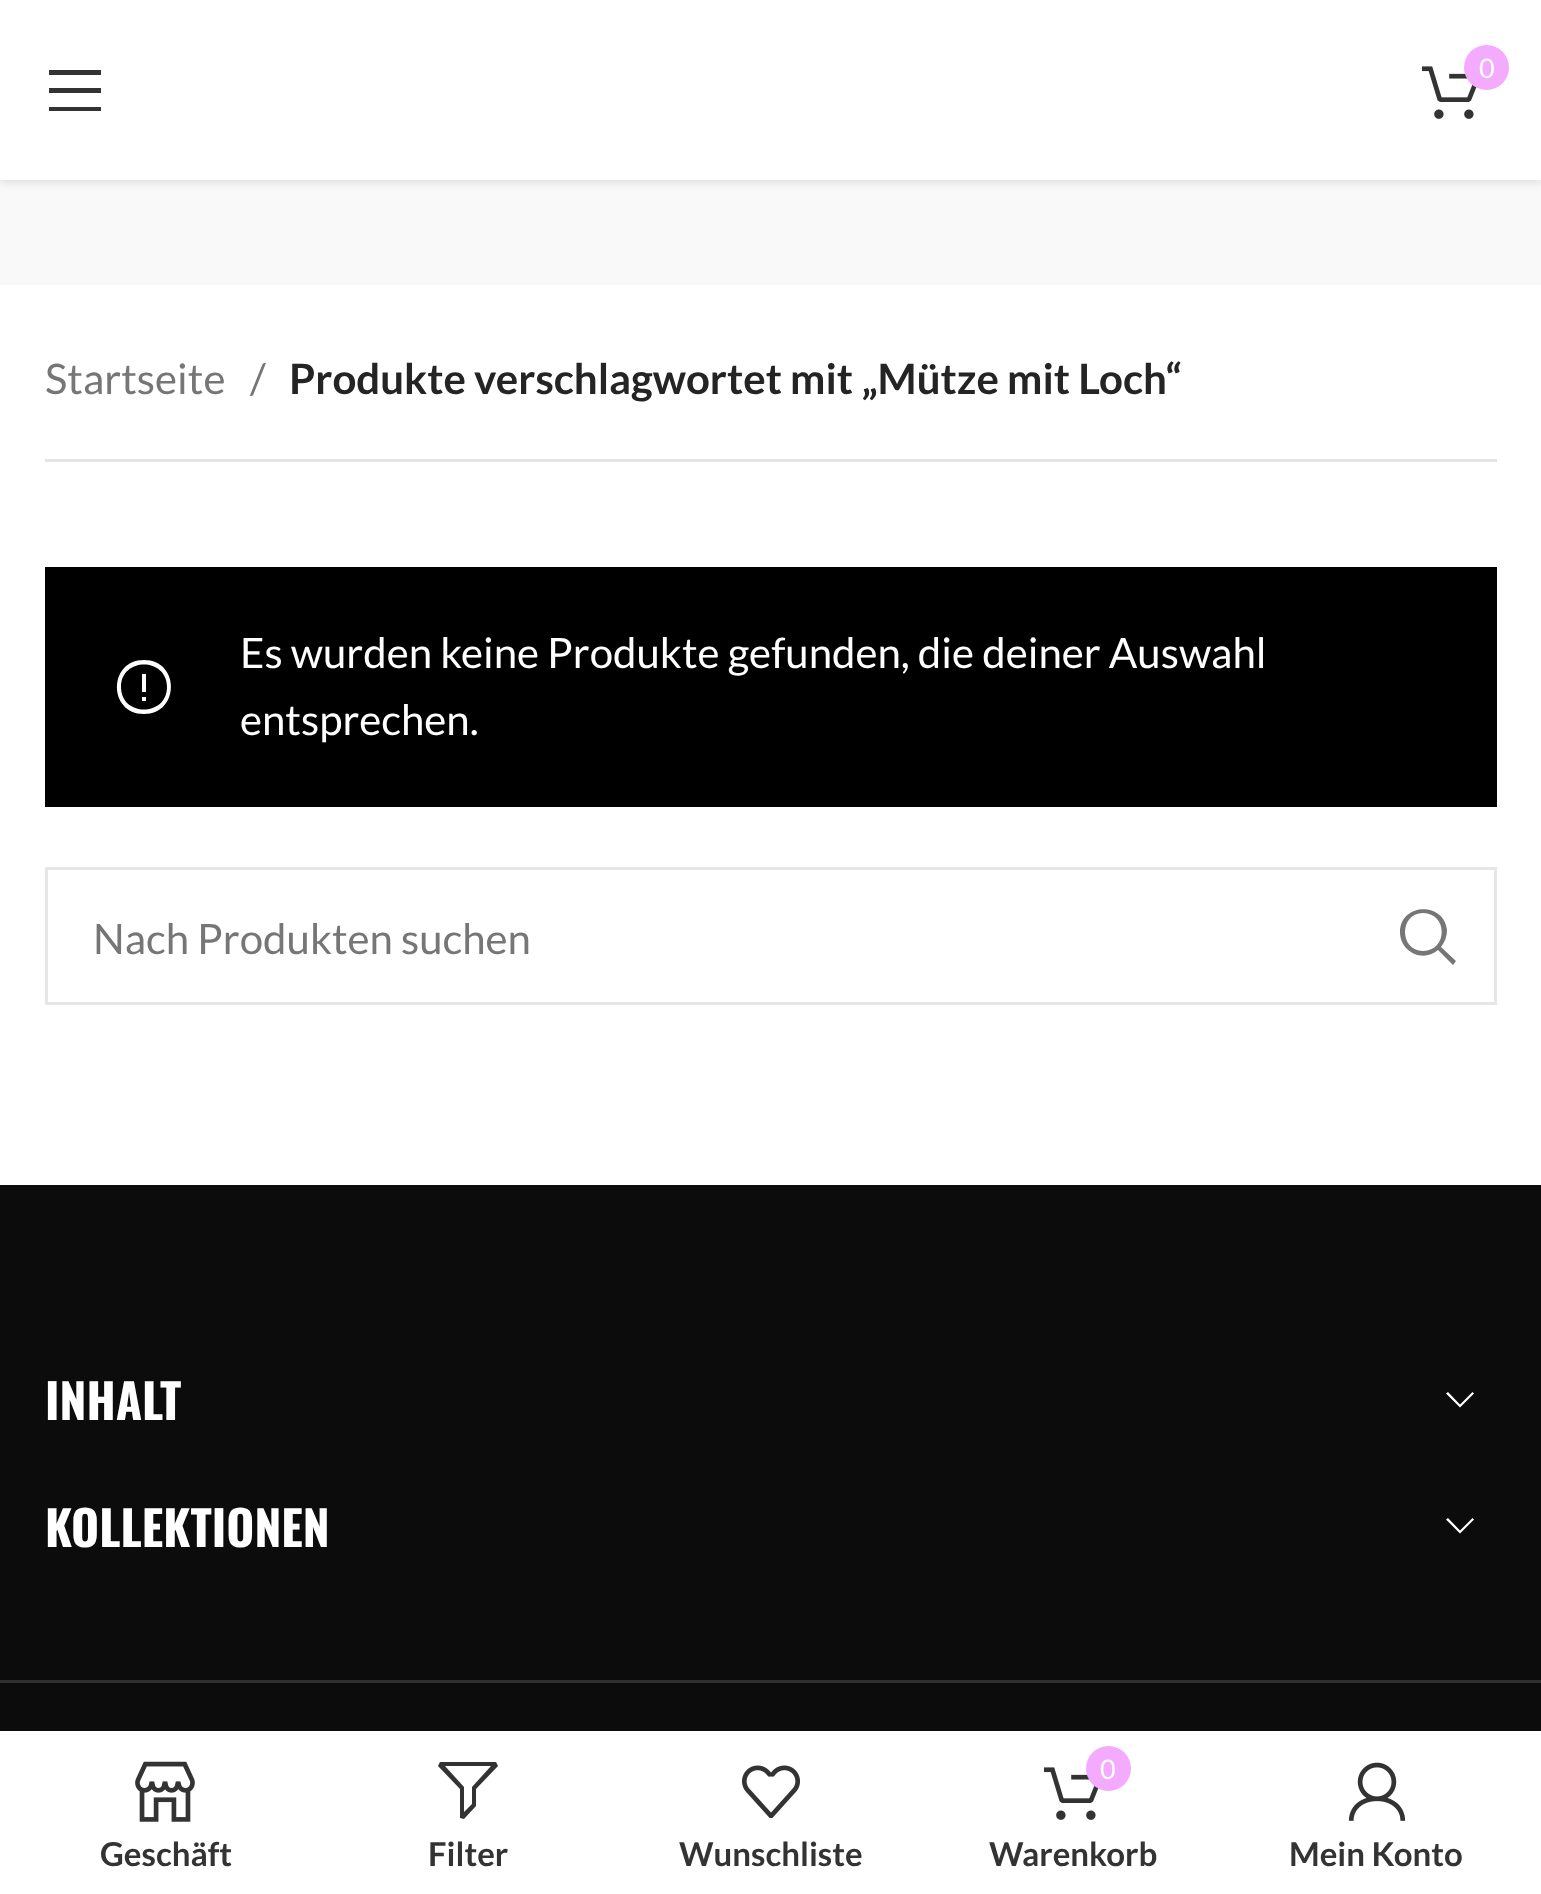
(async () => {
    const canvas = document.querySelector("canvas");
    canvas.width = 1541;
    canvas.height = 1894;
    const context = canvas.getContext("2d");
    context.miterLimit = 4;
    context.fontKerning = "normal";
    function write(s, x, y, font, color) {
        context.font = font;
        context.fillStyle = color;
        context.fillText(s, x, y);
    }
    function block(x, y, w, h, color) {
        context.fillStyle = color;
        context.fillRect(x, y, w, h);
    }
    async function photo(src, x, y, w, h) {
        const img = new Image();
        img.src = src;
        await img.decode();
        context.drawImage(img, x, y, w, h);
    }

    block(0, 0, 1541, 1894, "rgb(255, 255, 255)");
    block(0, 180, 1541, 105, "rgb(249, 249, 249)");
    context.fillStyle = "rgba(0, 0, 0, 0.1)";
    context.filter = "blur(4.5px)";
    context.beginPath();
    context.rect(0, 3, 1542, 180);
    context.fill();
    context.filter = "none";
    block(0, 0, 1541, 180, "rgb(255, 255, 255)");
    context.fillStyle = "rgb(51, 51, 51)";
    context.beginPath();
    context.moveTo(49, 75);
    context.lineTo(101, 75);
    context.lineTo(101, 70);
    context.lineTo(49, 70);
    context.closePath();
    context.moveTo(49, 93);
    context.lineTo(101, 93);
    context.lineTo(101, 88);
    context.lineTo(49, 88);
    context.closePath();
    context.moveTo(49, 111);
    context.lineTo(101, 111);
    context.lineTo(101, 107);
    context.lineTo(49, 107);
    context.closePath();
    context.fill();
    await photo("media/1.png", 1422, 66, 55, 53);
    context.fillStyle = "rgb(243, 170, 255)";
    context.beginPath();
    context.arc(1486.5, 67.5, 22.5, 0, Math.PI * 2);
    context.fill();
    write("0", 1479, 78, "27px Lato", "rgb(255, 255, 255)");
    block(45, 459, 1452, 3, "rgb(228, 228, 228)");
    write("Startseite", 45, 394, "42px Lato", "rgb(118, 118, 118)");
    write("/", 250, 394, "42px Lato", "rgb(118, 118, 118)");
    write("Produkte verschlagwortet mit „Mütze mit Loch“", 289, 394, "bold 42px Lato", "rgb(36, 36, 36)");
    block(45, 567, 1452, 240, "rgb(0, 0, 0)");
    context.fillStyle = "rgb(255, 255, 255)";
    context.beginPath();
    context.moveTo(142, 674);
    context.lineTo(142, 692);
    context.lineTo(146, 692);
    context.lineTo(146, 674);
    context.closePath();
    context.moveTo(142, 697);
    context.lineTo(142, 701);
    context.lineTo(146, 701);
    context.lineTo(146, 697);
    context.closePath();
    context.moveTo(144, 660);
    context.bezierCurveTo(108, 660, 108, 714, 144, 714);
    context.bezierCurveTo(180, 714, 180, 660, 144, 660);
    context.closePath();
    context.moveTo(121, 687);
    context.bezierCurveTo(121, 657, 167, 657, 167, 687);
    context.bezierCurveTo(167, 717, 121, 717, 121, 687);
    context.closePath();
    context.fill();
    write("Es wurden keine Produkte gefunden, die deiner Auswahl", 240, 668, "42px Lato", "rgb(255, 255, 255)");
    write("entsprechen.", 240, 735, "42px Lato", "rgb(255, 255, 255)");
    context.strokeStyle = "rgb(230, 230, 230)";
    context.lineWidth = 3;
    context.strokeRect(46.5, 868.5, 1449, 135);
    write("Nach Produkten suchen", 93, 954, "42px Lato", "rgb(118, 118, 118)");
    context.beginPath();
    context.moveTo(1400, 932);
    context.bezierCurveTo(1400, 952, 1423, 963, 1438, 950);
    context.lineTo(1453, 965);
    context.lineTo(1456, 961);
    context.lineTo(1441, 947);
    context.bezierCurveTo(1445, 942, 1447, 936, 1447, 930);
    context.bezierCurveTo(1444, 901, 1400, 903, 1400, 932);
    context.closePath();
    context.moveTo(1423, 951);
    context.bezierCurveTo(1399, 951, 1399, 913, 1423, 913);
    context.bezierCurveTo(1448, 913, 1448, 951, 1423, 951);
    context.closePath();
    context.fill();
    block(0, 1185, 1541, 546, "rgb(12, 12, 12)");
    write("INHALT", 45, 1420, "bold 48px Oswald", "rgb(255, 255, 255)");
    context.beginPath();
    context.moveTo(1472.5, 1392);
    context.lineTo(1460, 1404.5);
    context.lineTo(1448, 1392);
    context.lineTo(1446, 1393.5);
    context.lineTo(1460, 1407.5);
    context.lineTo(1474, 1393.5);
    context.closePath();
    context.fill();
    write("KOLLEKTIONEN", 45, 1547, "bold 48px Oswald", "rgb(255, 255, 255)");
    context.beginPath();
    context.moveTo(1472.5, 1518);
    context.lineTo(1460, 1530.5);
    context.lineTo(1448, 1518);
    context.lineTo(1446, 1519.5);
    context.lineTo(1460, 1533.5);
    context.lineTo(1474, 1519.5);
    context.closePath();
    context.fill();
    block(0, 1680, 1541, 3, "rgb(48, 48, 48)");
    await photo("media/2.png", 135, 1761, 60, 61);
    write("Geschäft", 100, 1866, "bold 33px Lato", "rgb(51, 51, 51)");
    context.beginPath();
    context.moveTo(440, 1762);
    context.lineTo(438, 1766);
    context.lineTo(460, 1789);
    context.lineTo(460, 1818);
    context.lineTo(464, 1819);
    context.lineTo(476, 1806);
    context.lineTo(476, 1789);
    context.lineTo(498, 1766);
    context.lineTo(496, 1762);
    context.closePath();
    context.moveTo(445, 1766);
    context.lineTo(491, 1766);
    context.lineTo(472, 1787);
    context.lineTo(472, 1804);
    context.lineTo(464, 1812);
    context.lineTo(464, 1787);
    context.closePath();
    context.fill();
    write("Filter", 428, 1866, "bold 33px Lato", "rgb(51, 51, 51)");
    await photo("media/3.png", 741, 1765, 60, 53);
    write("Wunschliste", 679, 1866, "bold 33px Lato", "rgb(51, 51, 51)");
    await photo("media/1.png", 1044, 1767, 55, 53);
    context.fillStyle = "rgb(243, 170, 255)";
    context.beginPath();
    context.arc(1108.5, 1768.5, 22.5, 0, Math.PI * 2);
    context.fill();
    write("0", 1100, 1779, "27px Lato", "rgb(255, 255, 255)");
    write("Warenkorb", 989, 1866, "bold 33px Lato", "rgb(51, 51, 51)");
    await photo("media/4.png", 1348, 1762, 58, 59);
    write("Mein Konto", 1289, 1866, "bold 33px Lato", "rgb(51, 51, 51)");
})();
